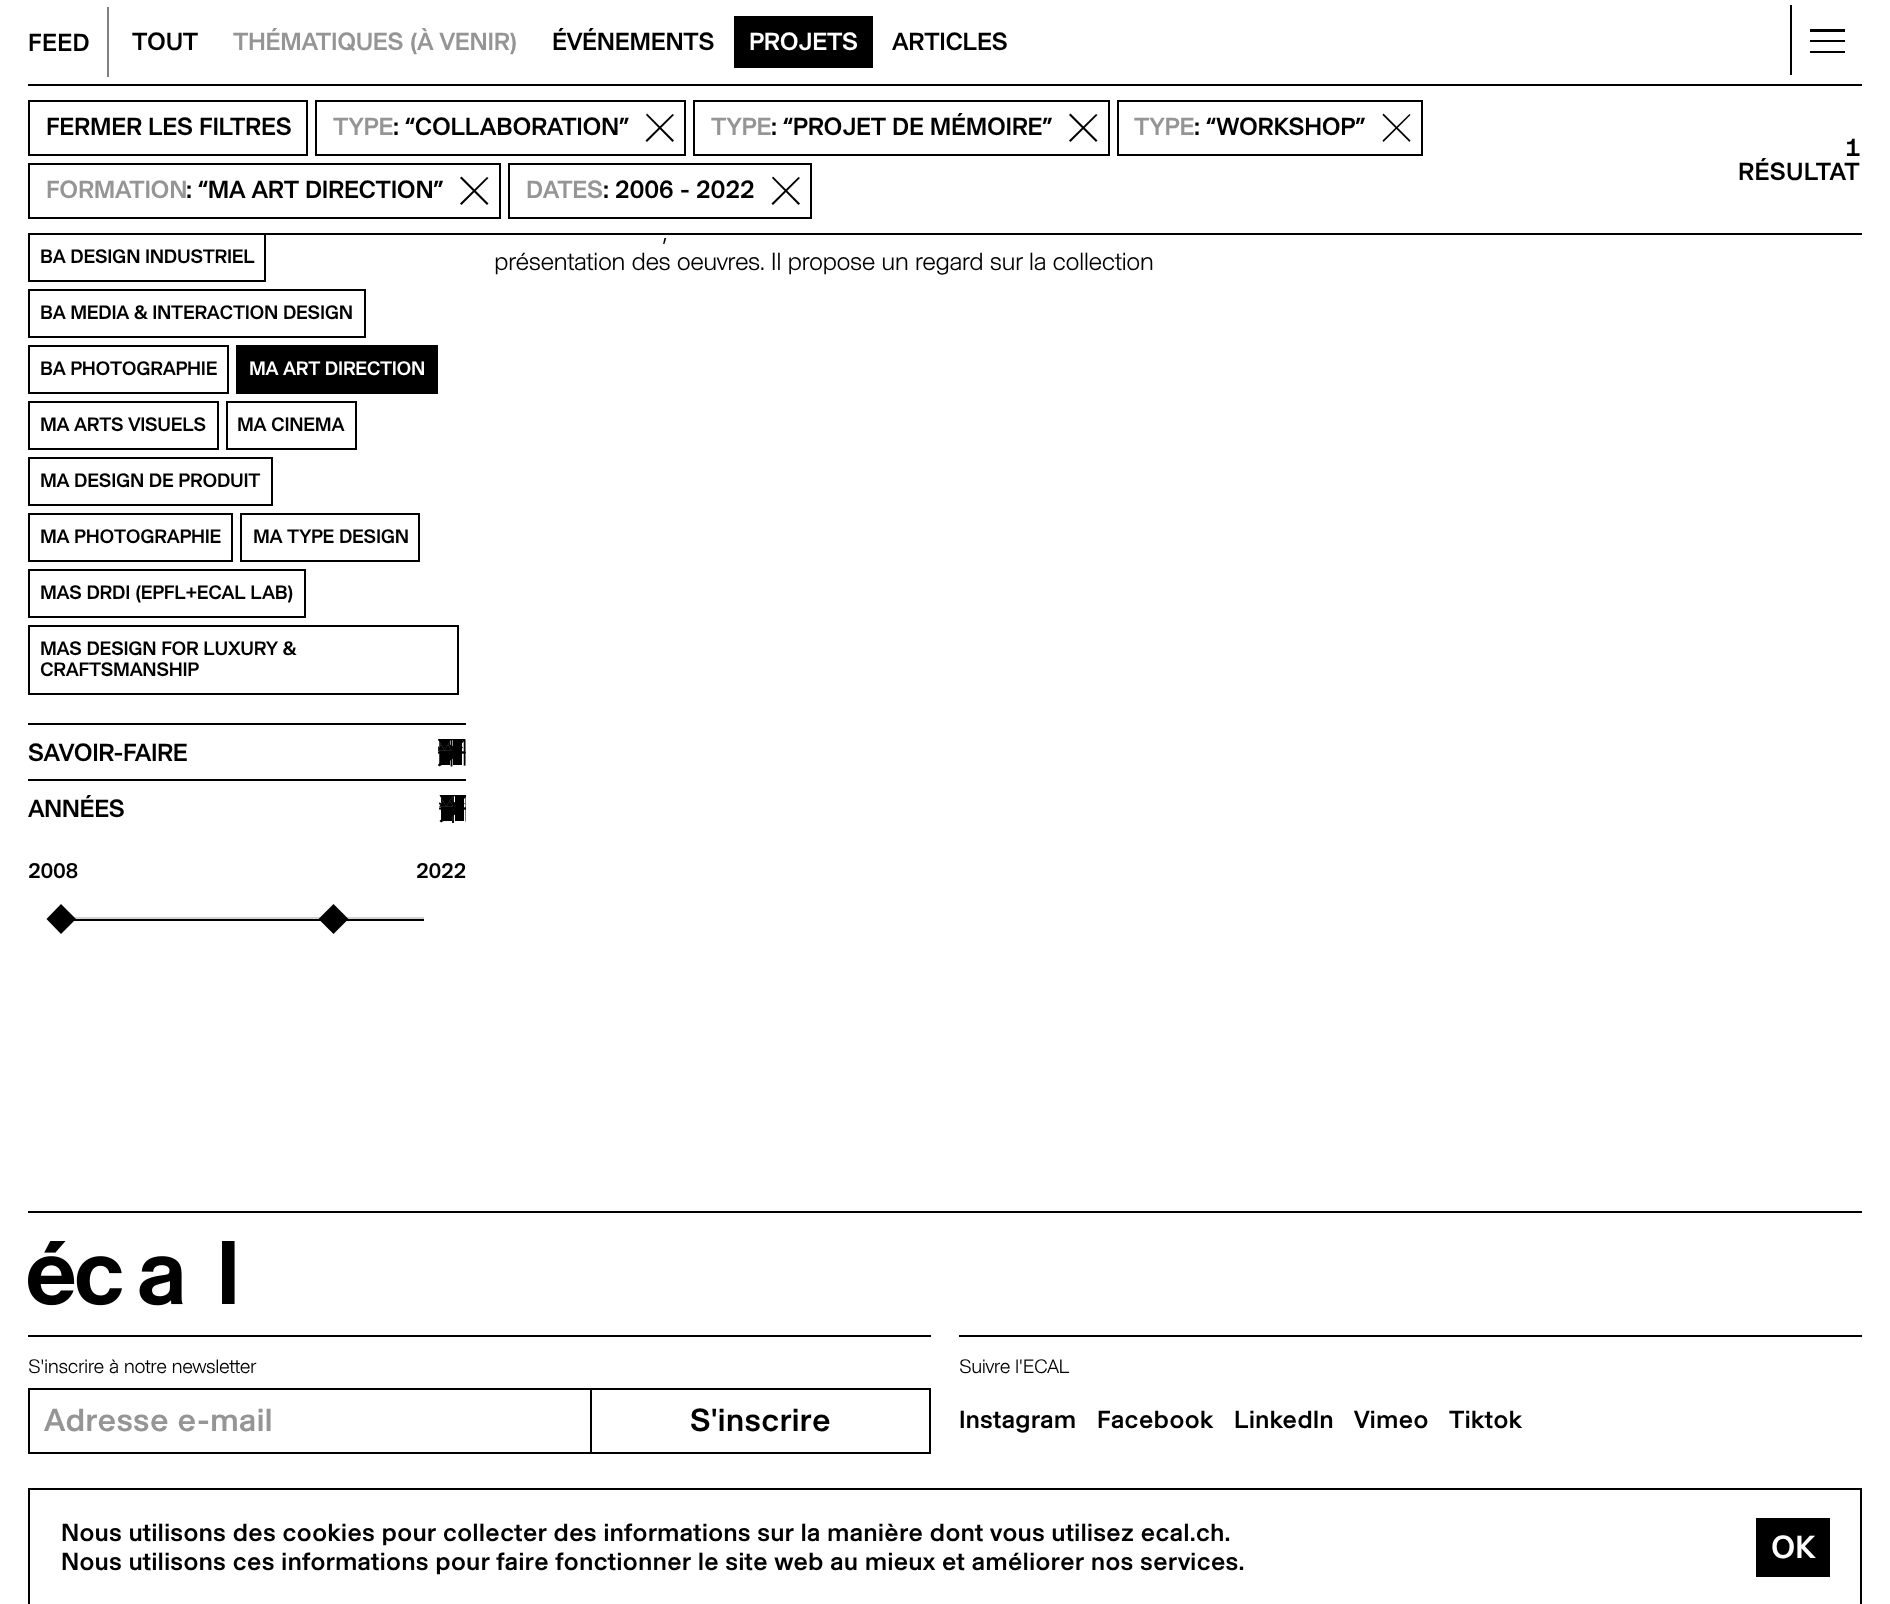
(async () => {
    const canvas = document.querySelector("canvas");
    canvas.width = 1890;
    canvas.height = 1604;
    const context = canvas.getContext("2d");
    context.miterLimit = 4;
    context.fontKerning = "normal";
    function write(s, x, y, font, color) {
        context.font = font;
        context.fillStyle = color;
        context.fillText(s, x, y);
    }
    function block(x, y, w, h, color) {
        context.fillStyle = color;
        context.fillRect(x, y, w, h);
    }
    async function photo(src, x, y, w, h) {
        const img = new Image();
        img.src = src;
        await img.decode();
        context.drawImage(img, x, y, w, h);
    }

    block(0, 0, 1890, 1604, "rgb(255, 255, 255)");
    context.letterSpacing = "0.25px";
    write("FEED", 28, 51, "500 24.5px 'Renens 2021'", "rgb(0, 0, 0)");
    block(107, 7, 2, 70, "rgb(128, 128, 128)");
    context.letterSpacing = "-0.3px";
    write("TOUT", 132, 50, "500 24.5px 'Renens 2021'", "rgb(0, 0, 0)");
    write("THÉMATIQUES (À VENIR)", 233, 50, "500 24.5px 'Renens 2021'", "rgb(149, 149, 149)");
    write("ÉVÉNEMENTS", 552, 50, "500 24.5px 'Renens 2021'", "rgb(0, 0, 0)");
    block(734, 16, 139, 52, "rgb(0, 0, 0)");
    write("PROJETS", 749, 50, "500 24.5px 'Renens 2021'", "rgb(255, 255, 255)");
    write("ARTICLES", 892, 50, "500 24.5px 'Renens 2021'", "rgb(0, 0, 0)");
    block(1790, 5, 2, 70, "rgb(0, 0, 0)");
    block(1810, 51, 35, 2, "rgb(0, 0, 0)");
    block(1810, 40, 35, 2, "rgb(0, 0, 0)");
    block(1810, 29, 35, 3, "rgb(0, 0, 0)");
    context.strokeStyle = "rgb(0, 0, 0)";
    context.lineWidth = 2;
    context.strokeRect(29, 234, 236, 47);
    block(28, 233, 238, 2, "rgb(255, 255, 255)");
    block(28, 84, 1834, 2, "rgb(0, 0, 0)");
    block(28, 233, 1834, 2, "rgb(0, 0, 0)");
    context.strokeRect(29, 101, 278, 54);
    write("FERMER LES FILTRES", 46, 135, "500 24.5px 'Renens 2021'", "rgb(0, 0, 0)");
    context.strokeRect(316, 101, 369, 54);
    write("TYPE", 333, 135, "500 24.5px 'Renens 2021'", "rgb(149, 149, 149)");
    write(": “COLLABORATION”", 393, 135, "500 24.5px 'Renens 2021'", "rgb(0, 0, 0)");
    context.beginPath();
    context.moveTo(646, 115);
    context.lineTo(647, 113.5);
    context.lineTo(674, 140.5);
    context.lineTo(672.5, 142);
    context.closePath();
    context.fill();
    context.beginPath();
    context.moveTo(672.5, 114);
    context.lineTo(674, 115);
    context.lineTo(647, 142);
    context.lineTo(645.5, 140.5);
    context.closePath();
    context.fill();
    context.strokeRect(694, 101, 415, 54);
    write("TYPE", 711, 135, "500 24.5px 'Renens 2021'", "rgb(149, 149, 149)");
    write(": “PROJET DE MÉMOIRE”", 771, 135, "500 24.5px 'Renens 2021'", "rgb(0, 0, 0)");
    context.beginPath();
    context.moveTo(1069, 115);
    context.lineTo(1070.5, 113.5);
    context.lineTo(1097.5, 140.5);
    context.lineTo(1096, 142);
    context.closePath();
    context.fill();
    context.beginPath();
    context.moveTo(1096, 114);
    context.lineTo(1097.5, 115);
    context.lineTo(1070.5, 142);
    context.lineTo(1069, 140.5);
    context.closePath();
    context.fill();
    context.strokeRect(1118, 101, 304, 54);
    write("TYPE", 1134, 135, "500 24.5px 'Renens 2021'", "rgb(149, 149, 149)");
    write(": “WORKSHOP”", 1194, 135, "500 24.5px 'Renens 2021'", "rgb(0, 0, 0)");
    context.beginPath();
    context.moveTo(1382.5, 115);
    context.lineTo(1383.5, 113.5);
    context.lineTo(1410.5, 140.5);
    context.lineTo(1409.5, 142);
    context.closePath();
    context.fill();
    context.beginPath();
    context.moveTo(1409.5, 114);
    context.lineTo(1410.5, 115);
    context.lineTo(1383.5, 142);
    context.lineTo(1382.5, 140.5);
    context.closePath();
    context.fill();
    context.strokeRect(29, 164, 471, 54);
    write("FORMATION", 46, 198, "500 24.5px 'Renens 2021'", "rgb(149, 149, 149)");
    write(": “MA ART DIRECTION”", 186, 198, "500 24.5px 'Renens 2021'", "rgb(0, 0, 0)");
    context.beginPath();
    context.moveTo(460, 178);
    context.lineTo(461.5, 176.5);
    context.lineTo(488.5, 203.5);
    context.lineTo(487, 205);
    context.closePath();
    context.fill();
    context.beginPath();
    context.moveTo(487, 177);
    context.lineTo(488.5, 178);
    context.lineTo(461.5, 205);
    context.lineTo(460, 203.5);
    context.closePath();
    context.fill();
    context.strokeRect(509, 164, 302, 54);
    write("DATES", 526, 198, "500 24.5px 'Renens 2021'", "rgb(149, 149, 149)");
    write(": 2006 - 2022", 603, 198, "500 24.5px 'Renens 2021'", "rgb(0, 0, 0)");
    context.beginPath();
    context.moveTo(772, 178);
    context.lineTo(773, 176.5);
    context.lineTo(800, 203.5);
    context.lineTo(798.5, 205);
    context.closePath();
    context.fill();
    context.beginPath();
    context.moveTo(798.5, 177);
    context.lineTo(800, 178);
    context.lineTo(773, 205);
    context.lineTo(771.5, 203.5);
    context.closePath();
    context.fill();
    context.letterSpacing = "0.25px";
    write("1", 1845, 156, "500 24.5px 'Renens 2021'", "rgb(0, 0, 0)");
    write("RÉSULTAT", 1738, 180, "500 24.5px 'Renens 2021'", "rgb(0, 0, 0)");
    context.letterSpacing = "-0.3px";
    write("BA DESIGN INDUSTRIEL", 40, 263, "500 19.25px 'Renens 2021'", "rgb(0, 0, 0)");
    context.strokeRect(29, 290, 336, 47);
    write("BA MEDIA & INTERACTION DESIGN", 40, 319, "500 19.25px 'Renens 2021'", "rgb(0, 0, 0)");
    context.strokeRect(29, 346, 199, 47);
    write("BA PHOTOGRAPHIE", 40, 375, "500 19.25px 'Renens 2021'", "rgb(0, 0, 0)");
    context.beginPath();
    context.rect(237, 346, 200, 47);
    context.fill();
    context.stroke();
    write("MA ART DIRECTION", 249, 375, "500 19.25px 'Renens 2021'", "rgb(255, 255, 255)");
    context.strokeRect(29, 402, 189, 47);
    write("MA ARTS VISUELS", 40, 431, "500 19.25px 'Renens 2021'", "rgb(0, 0, 0)");
    context.strokeRect(227, 402, 129, 47);
    write("MA CINEMA", 237, 431, "500 19.25px 'Renens 2021'", "rgb(0, 0, 0)");
    context.strokeRect(29, 458, 243, 47);
    write("MA DESIGN DE PRODUIT", 40, 487, "500 19.25px 'Renens 2021'", "rgb(0, 0, 0)");
    context.strokeRect(29, 514, 203, 47);
    write("MA PHOTOGRAPHIE", 40, 543, "500 19.25px 'Renens 2021'", "rgb(0, 0, 0)");
    context.strokeRect(241, 514, 178, 47);
    write("MA TYPE DESIGN", 253, 543, "500 19.25px 'Renens 2021'", "rgb(0, 0, 0)");
    context.strokeRect(29, 570, 276, 47);
    write("MAS DRDI (EPFL+ECAL LAB)", 40, 599, "500 19.25px 'Renens 2021'", "rgb(0, 0, 0)");
    context.strokeRect(29, 626, 429, 68);
    write("MAS DESIGN FOR LUXURY &", 40, 655, "500 19.25px 'Renens 2021'", "rgb(0, 0, 0)");
    write("CRAFTSMANSHIP", 40, 676, "500 19.25px 'Renens 2021'", "rgb(0, 0, 0)");
    block(28, 723, 438, 2, "rgb(0, 0, 0)");
    context.letterSpacing = "-0.5px";
    write("SAVOIR-FAIRE", 28, 761, "500 24.5px 'Renens 2021'", "rgb(0, 0, 0)");
    await photo("media/1.png", 438, 739, 28, 28);
    block(28, 779, 438, 2, "rgb(0, 0, 0)");
    write("ANNÉES", 28, 817, "500 24.5px 'Renens 2021'", "rgb(0, 0, 0)");
    await photo("media/2.png", 439, 795, 27, 28);
    context.letterSpacing = "-0.3px";
    write("2008", 28, 878, "500 21px 'Renens 2021'", "rgb(0, 0, 0)");
    write("2022", 416, 878, "500 21px 'Renens 2021'", "rgb(0, 0, 0)");
    block(70, 917, 354, 2, "rgb(211, 211, 211)");
    block(422, 917, 2, 4, "rgb(211, 211, 211)");
    block(70, 919, 354, 2, "rgb(0, 0, 0)");
    context.beginPath();
    context.moveTo(61, 904);
    context.lineTo(76, 919);
    context.lineTo(61, 934);
    context.lineTo(46.5, 919);
    context.closePath();
    context.fill();
    context.beginPath();
    context.moveTo(333.5, 904);
    context.lineTo(348.5, 919);
    context.lineTo(333.5, 934);
    context.lineTo(318.5, 919);
    context.closePath();
    context.fill();
    context.letterSpacing = "-0.5px";
    write(",", 662, 241, "300 24.5px 'Renens 2021'", "rgb(0, 0, 0)");
    write("présentation des oeuvres. Il propose un regard sur la collection", 494, 270, "300 24.5px 'Renens 2021'", "rgb(0, 0, 0)");
    block(28, 1211, 1834, 2, "rgb(0, 0, 0)");
    await photo("media/3.png", 28, 1241, 207, 65);
    block(28, 1335, 903, 2, "rgb(0, 0, 0)");
    context.letterSpacing = "-0.4px";
    write("S'inscrire à notre newsletter", 28, 1373, "300 19.25px 'Renens 2021'", "rgb(0, 0, 0)");
    context.strokeRect(29, 1389, 562, 64);
    context.letterSpacing = "0px";
    write("Adresse e-mail", 44, 1431, "500 31.5px 'Renens 2021'", "rgb(149, 149, 149)");
    context.strokeRect(591, 1389, 339, 64);
    write("S'inscrire", 690, 1431, "500 31.5px 'Renens 2021'", "rgb(0, 0, 0)");
    block(959, 1335, 903, 2, "rgb(0, 0, 0)");
    context.letterSpacing = "-0.4px";
    write("Suivre l'ECAL", 959, 1373, "300 19.25px 'Renens 2021'", "rgb(0, 0, 0)");
    context.letterSpacing = "0px";
    write("Instagram", 959, 1428, "500 24.5px 'Renens 2021'", "rgb(0, 0, 0)");
    write("Facebook", 1097, 1428, "500 24.5px 'Renens 2021'", "rgb(0, 0, 0)");
    write("LinkedIn", 1234, 1428, "500 24.5px 'Renens 2021'", "rgb(0, 0, 0)");
    write("Vimeo", 1354, 1428, "500 24.5px 'Renens 2021'", "rgb(0, 0, 0)");
    write("Tiktok", 1449, 1428, "500 24.5px 'Renens 2021'", "rgb(0, 0, 0)");
    block(28, 1488, 1834, 2, "rgb(0, 0, 0)");
    block(1860, 1488, 2, 116, "rgb(0, 0, 0)");
    block(28, 1488, 2, 116, "rgb(0, 0, 0)");
    write("Nous utilisons des cookies pour collecter des informations sur la manière dont vous utilisez ecal.ch.", 61, 1541, "500 24.5px 'Renens 2021'", "rgb(0, 0, 0)");
    block(1756, 1518, 74, 59, "rgb(0, 0, 0)");
    write("OK", 1771, 1558, "500 31.5px 'Renens 2021'", "rgb(255, 255, 255)");
    write("Nous utilisons ces informations pour faire fonctionner le site web au mieux et améliorer nos services.", 61, 1570, "500 24.5px 'Renens 2021'", "rgb(0, 0, 0)");
})();
